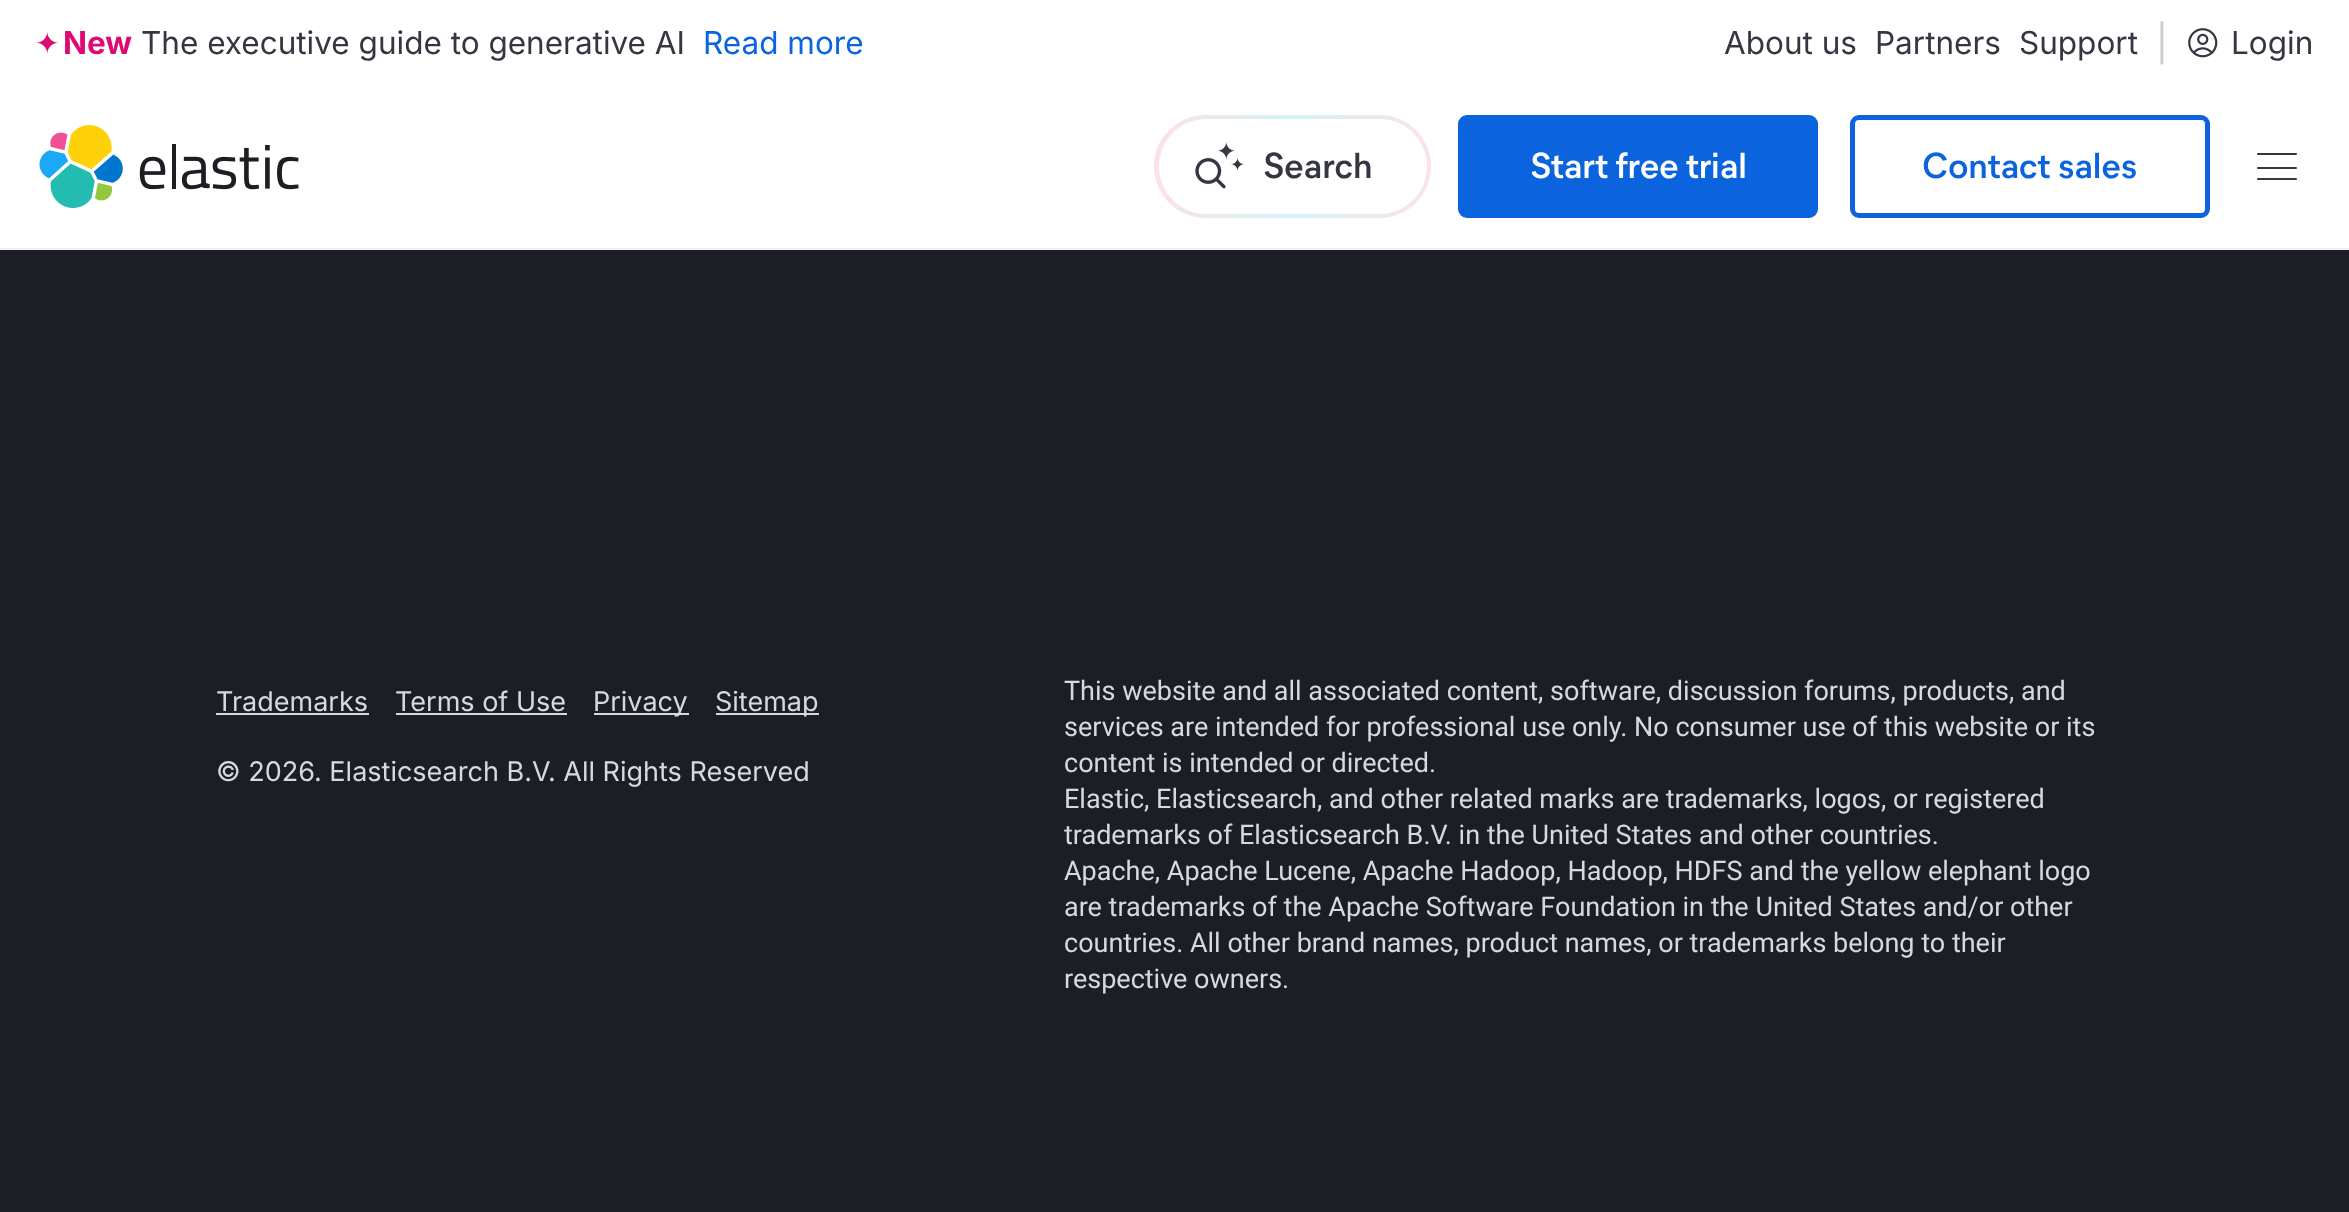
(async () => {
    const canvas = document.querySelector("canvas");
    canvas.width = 2349;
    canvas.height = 1212;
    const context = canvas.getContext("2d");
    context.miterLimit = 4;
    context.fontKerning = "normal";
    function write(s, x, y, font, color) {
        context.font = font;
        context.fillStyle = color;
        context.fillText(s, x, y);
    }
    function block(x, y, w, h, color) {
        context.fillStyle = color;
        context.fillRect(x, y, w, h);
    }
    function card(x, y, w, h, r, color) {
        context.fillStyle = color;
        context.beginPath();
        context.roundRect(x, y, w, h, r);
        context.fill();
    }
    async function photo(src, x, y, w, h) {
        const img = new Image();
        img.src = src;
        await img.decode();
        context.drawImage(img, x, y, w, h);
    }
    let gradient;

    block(0, 0, 2349, 1212, "rgb(28, 30, 35)");
    block(0, 0, 2349, 248, "rgb(255, 255, 255)");
    block(0, 248, 2349, 2, "rgb(238, 239, 241)");
    await photo("media/1.png", 36, 32, 23, 22);
    write("New", 63, 54, "bold 31.5px Inter", "rgb(221, 10, 115)");
    write("The executive guide to generative AI", 141, 54, "31.5px Inter", "rgb(52, 55, 65)");
    write("Read more", 703, 54, "31.5px Inter", "rgb(11, 100, 221)");
    write("About us", 1724, 54, "31.5px Inter", "rgb(52, 55, 65)");
    write("Partners", 1875, 54, "31.5px Inter", "rgb(52, 55, 65)");
    write("Support", 2019, 54, "31.5px Inter", "rgb(52, 55, 65)");
    write("|", 2156, 56, "36px 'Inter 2'", "rgb(204, 204, 204)");
    await photo("media/2.png", 2188, 28, 30, 30);
    write("Login", 2231, 54, "31.5px Inter", "rgb(52, 55, 65)");
    await photo("media/3.png", 39, 125, 260, 83);
    gradient = context.createLinearGradient(1154, 167, 1708, 166);
    gradient.addColorStop(0, "rgb(252, 225, 237)");
    gradient.addColorStop(0.25, "rgb(212, 244, 243)");
    gradient.addColorStop(0.5, "rgb(252, 225, 237)");
    gradient.addColorStop(0.75, "rgb(212, 244, 243)");
    gradient.addColorStop(1, "rgb(252, 225, 237)");
    context.fillStyle = gradient;
    context.beginPath();
    context.roundRect(1154, 115, 277, 103, 51.5);
    context.fill();
    card(1159, 119, 268, 95, 47.5, "rgb(255, 255, 255)");
    await photo("media/4.png", 1195, 142, 49, 47);
    write("Search", 1263, 178, "600 36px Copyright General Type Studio", "rgb(52, 55, 65)");
    context.fillStyle = "rgb(11, 100, 221)";
    context.beginPath();
    context.roundRect(1460.5, 117.5, 355, 98, 6.5);
    context.fill();
    context.strokeStyle = "rgb(11, 100, 221)";
    context.lineWidth = 5;
    context.stroke();
    write("Start free trial", 1530, 178, "600 36px Copyright General Type Studio", "rgb(255, 255, 255)");
    context.beginPath();
    context.roundRect(1852.5, 117.5, 355, 98, 6.5);
    context.stroke();
    write("Contact sales", 1922, 178, "600 36px Copyright General Type Studio", "rgb(11, 100, 221)");
    card(2257, 153, 40, 2, 1, "rgb(52, 55, 65)");
    card(2257, 167, 40, 2, 1, "rgb(52, 55, 65)");
    card(2257, 178, 40, 2, 1, "rgb(52, 55, 65)");
    write("Trademarks", 216, 711, "27px Inter", "rgb(212, 218, 229)");
    block(216, 713, 153, 2, "rgb(212, 218, 229)");
    write("Terms of Use", 395, 711, "27px Inter", "rgb(212, 218, 229)");
    block(396, 713, 171, 2, "rgb(212, 218, 229)");
    block(594, 713, 95, 2, "rgb(212, 218, 229)");
    write("Privacy", 593, 711, "27px Inter", "rgb(212, 218, 229)");
    block(716, 713, 103, 2, "rgb(212, 218, 229)");
    write("Sitemap", 715, 711, "27px Inter", "rgb(212, 218, 229)");
    write("© 2026", 216, 781, "27px Inter", "rgb(212, 218, 229)");
    write(". Elasticsearch B.V. All Rights Reserved", 314, 781, "27px Inter", "rgb(212, 218, 229)");
    write("This website and all associated content, software, discussion forums, products, and", 1064, 700, "27px Roboto", "rgb(212, 218, 229)");
    write("services are intended for professional use only. No consumer use of this website or its", 1064, 736, "27px Roboto", "rgb(212, 218, 229)");
    write("content is intended or directed.", 1064, 772, "27px Roboto", "rgb(212, 218, 229)");
    write("Elastic, Elasticsearch, and other related marks are trademarks, logos, or registered", 1064, 808, "27px Roboto", "rgb(212, 218, 229)");
    write("trademarks of Elasticsearch B.V. in the United States and other countries.", 1064, 844, "27px Roboto", "rgb(212, 218, 229)");
    write("Apache, Apache Lucene, Apache Hadoop, Hadoop, HDFS and the yellow elephant logo", 1064, 880, "27px Roboto", "rgb(212, 218, 229)");
    write("are trademarks of the Apache Software Foundation in the United States and/or other", 1064, 916, "27px Roboto", "rgb(212, 218, 229)");
    write("countries. All other brand names, product names, or trademarks belong to their", 1064, 952, "27px Roboto", "rgb(212, 218, 229)");
    write("respective owners.", 1064, 988, "27px Roboto", "rgb(212, 218, 229)");
})();
